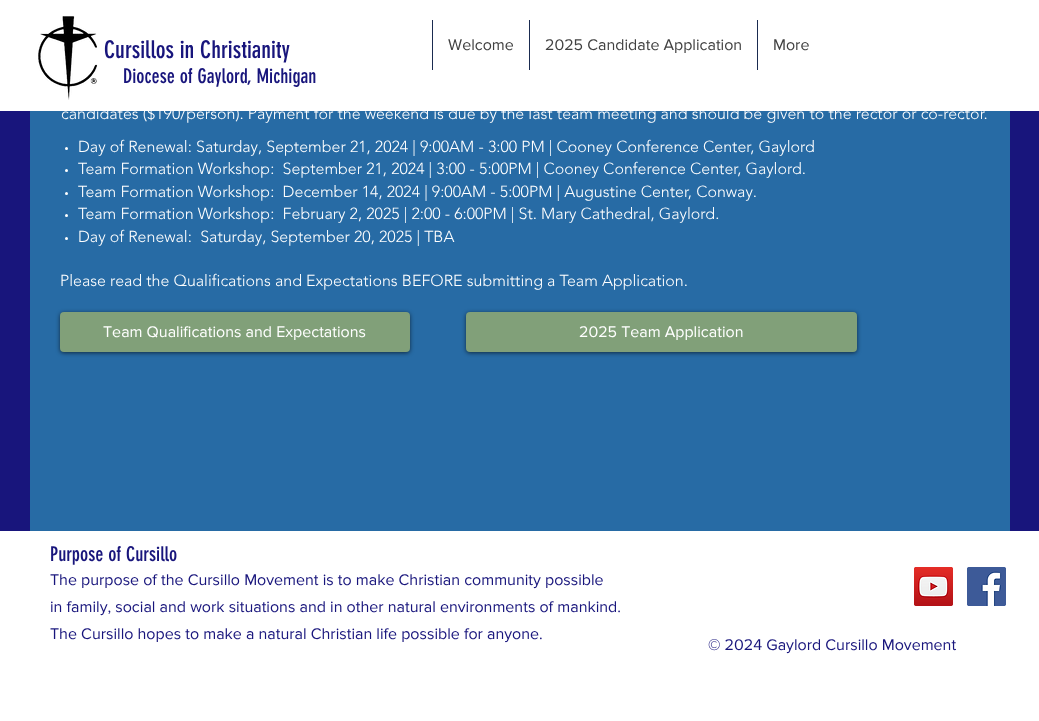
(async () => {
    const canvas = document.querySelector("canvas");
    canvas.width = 1039;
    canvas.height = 721;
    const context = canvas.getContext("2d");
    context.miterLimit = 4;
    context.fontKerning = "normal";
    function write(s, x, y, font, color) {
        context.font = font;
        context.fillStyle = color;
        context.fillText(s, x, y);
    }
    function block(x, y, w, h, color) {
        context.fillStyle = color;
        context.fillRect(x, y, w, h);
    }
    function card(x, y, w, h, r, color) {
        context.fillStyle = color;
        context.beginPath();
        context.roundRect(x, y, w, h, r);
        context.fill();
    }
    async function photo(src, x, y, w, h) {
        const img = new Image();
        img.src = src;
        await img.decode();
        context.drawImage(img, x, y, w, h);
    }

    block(0, 0, 1039, 721, "rgb(24, 21, 124)");
    block(0, 0, 1039, 111, "rgb(255, 255, 255)");
    await photo("media/1.png", 38, 16, 60, 84);
    write("Cursillos in Christianity", 104, 58, "24px 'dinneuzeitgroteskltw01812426'", "rgb(24, 21, 124)");
    write("Diocese of Gaylord, Michigan", 123, 83, "20px 'dinneuzeitgroteskltw01812426'", "rgb(24, 21, 124)");
    block(432, 20, 1, 50, "rgb(26, 43, 80)");
    write("Welcome", 448, 50, "16px 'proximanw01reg'", "rgb(65, 65, 65)");
    block(529, 20, 1, 50, "rgb(26, 43, 80)");
    write("2025 Candidate Application", 545, 50, "16px 'proximanw01reg'", "rgb(65, 65, 65)");
    block(757, 20, 1, 50, "rgb(26, 43, 80)");
    write("More", 773, 50, "16px 'proximanw01reg'", "rgb(65, 65, 65)");
    block(30, 111, 980, 420, "rgb(39, 107, 165)");
    write("candidates ($190/person). Payment for the weekend is due by the last team meeting and should be given to the rector or co-rector.", 61, 119, "300 16px 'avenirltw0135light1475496'", "rgb(255, 255, 255)");
    context.beginPath();
    context.arc(66.5, 148.5, 1.5, 0, Math.PI * 2);
    context.fill();
    write("Day of Renewal: Saturday, September 21, 2024 | 9:00AM - 3:00 PM | Cooney Conference Center, Gaylord", 78, 152, "300 16px 'avenirltw0135light1475496'", "rgb(255, 255, 255)");
    context.beginPath();
    context.arc(66.5, 170.5, 1.5, 0, Math.PI * 2);
    context.fill();
    write("Team Formation Workshop:  September 21, 2024 | 3:00 - 5:00PM | Cooney Conference Center, Gaylord.", 78, 174, "300 16px 'avenirltw0135light1475496'", "rgb(255, 255, 255)");
    context.beginPath();
    context.arc(66.5, 193.5, 1.5, 0, Math.PI * 2);
    context.fill();
    write("Team Formation Workshop:  December 14, 2024 | 9:00AM - 5:00PM | Augustine Center, Conway.", 78, 197, "300 16px 'avenirltw0135light1475496'", "rgb(255, 255, 255)");
    context.beginPath();
    context.arc(66.5, 215.5, 1.5, 0, Math.PI * 2);
    context.fill();
    write("Team Formation Workshop:  February 2, 2025 | 2:00 - 6:00PM | St. Mary Cathedral, Gaylord.", 78, 219, "300 16px 'avenirltw0135light1475496'", "rgb(255, 255, 255)");
    context.beginPath();
    context.arc(66.5, 238.5, 1.5, 0, Math.PI * 2);
    context.fill();
    write("Day of Renewal:  Saturday, September 20, 2025 | TBA", 78, 242, "300 16px 'avenirltw0135light1475496'", "rgb(255, 255, 255)");
    write("Please read the Qualifications and Expectations BEFORE submitting a Team Application.", 60, 286, "300 16px 'avenirltw0135light1475496'", "rgb(255, 255, 255)");
    context.fillStyle = "rgba(0, 0, 0, 0.6)";
    context.filter = "blur(2px)";
    context.beginPath();
    context.roundRect(60, 313, 350, 40, 4);
    context.fill();
    context.filter = "none";
    card(60, 312, 350, 40, 4, "rgb(129, 160, 121)");
    write("Team Qualifications and Expectations", 103, 337, "16px 'proximanw01reg'", "rgb(255, 255, 255)");
    context.fillStyle = "rgba(0, 0, 0, 0.6)";
    context.filter = "blur(2px)";
    context.beginPath();
    context.roundRect(466, 313, 391, 40, 4);
    context.fill();
    context.filter = "none";
    card(466, 312, 391, 40, 4, "rgb(129, 160, 121)");
    write("2025 Team Application", 579, 337, "16px 'proximanw01reg'", "rgb(255, 255, 255)");
    block(0, 531, 1039, 190, "rgb(255, 255, 255)");
    write("Purpose of Cursillo", 50, 561, "20px 'dinneuzeitgroteskltw01812426'", "rgb(24, 21, 124)");
    write("The purpose of the Cursillo Movement is to make Christian community possible", 50, 585, "16px 'proximanw01reg'", "rgb(24, 21, 124)");
    write("in family, social and work situations and in other natural environments of mankind.", 50, 612, "16px 'proximanw01reg'", "rgb(24, 21, 124)");
    write("The Cursillo hopes to make a natural Christian life possible for anyone.", 50, 639, "16px 'proximanw01reg'", "rgb(24, 21, 124)");
    await photo("media/2.png", 914, 567, 39, 39);
    await photo("media/3.png", 967, 567, 39, 39);
    write("© 2024 Gaylord Cursillo Movement", 708, 650, "16px 'proximanw01reg'", "rgb(24, 21, 124)");
})();
